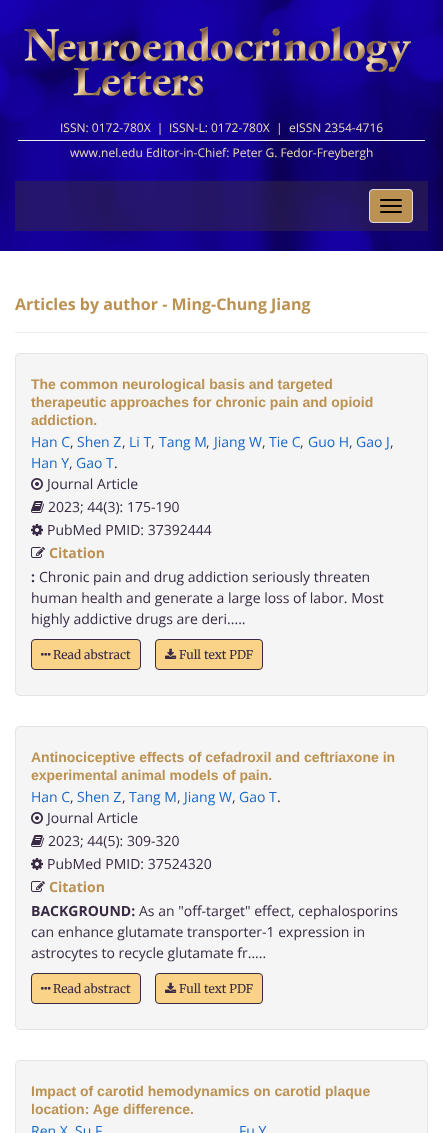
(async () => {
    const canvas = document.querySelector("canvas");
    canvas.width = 443;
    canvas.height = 1133;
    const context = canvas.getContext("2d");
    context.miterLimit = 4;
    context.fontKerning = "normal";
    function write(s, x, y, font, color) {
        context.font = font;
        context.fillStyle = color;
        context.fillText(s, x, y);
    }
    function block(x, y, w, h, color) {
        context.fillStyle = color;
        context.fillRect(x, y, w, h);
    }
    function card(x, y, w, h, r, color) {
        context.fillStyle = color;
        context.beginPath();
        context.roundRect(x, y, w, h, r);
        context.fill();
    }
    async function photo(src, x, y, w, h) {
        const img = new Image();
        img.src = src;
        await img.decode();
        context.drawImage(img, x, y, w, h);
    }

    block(0, 0, 443, 1133, "rgb(255, 255, 255)");
    await photo("media/1.png", 0, 0, 443, 251);
    await photo("media/2.png", 24, 26, 387, 71);
    write("ISSN: 0172-780X  |", 60, 132, "12px Open Sans", "rgb(239, 220, 186)");
    write("ISSN-L: 0172-780X  |", 169, 132, "12px Open Sans", "rgb(239, 220, 186)");
    write("eISSN 2354-4716", 289, 132, "12px Open Sans", "rgb(239, 220, 186)");
    block(18, 140, 407, 1, "rgb(238, 238, 238)");
    write("www.nel.edu Editor-in-Chief: Peter G. Fedor-Freybergh", 70, 157, "12px Open Sans", "rgb(239, 220, 186)");
    block(15, 181, 413, 50, "rgba(55, 42, 66, 0.5)");
    context.fillStyle = "rgb(188, 146, 84)";
    context.beginPath();
    context.roundRect(369.5, 189.5, 43, 33, 3.5);
    context.fill();
    context.strokeStyle = "rgb(221, 221, 221)";
    context.stroke();
    card(380, 199, 22, 2, 1, "rgb(0, 0, 0)");
    card(380, 205, 22, 2, 1, "rgb(0, 0, 0)");
    card(380, 211, 22, 2, 1, "rgb(0, 0, 0)");
    write("Articles by author - Ming-Chung Jiang", 15, 310, "bold 16px Open Sans", "rgb(188, 146, 84)");
    block(15, 332, 413, 1, "rgb(238, 238, 238)");
    context.fillStyle = "rgb(245, 245, 245)";
    context.beginPath();
    context.roundRect(15.5, 353.5, 412, 342, 4.5);
    context.fill();
    context.strokeStyle = "rgb(227, 227, 227)";
    context.stroke();
    write("The common neurological basis and targeted", 31, 389, "bold 14px Liberation Sans", "rgb(188, 146, 84)");
    write("therapeutic approaches for chronic pain and opioid", 31, 407, "bold 14px Liberation Sans", "rgb(188, 146, 84)");
    write("addiction.", 31, 425, "bold 14px Liberation Sans", "rgb(188, 146, 84)");
    write("Han C", 31, 447, "14px Open Sans", "rgb(26, 105, 199)");
    write(",", 70, 447, "14px Open Sans", "rgb(55, 42, 66)");
    write("Shen Z", 77, 447, "14px Open Sans", "rgb(26, 105, 199)");
    write(",", 122, 447, "14px Open Sans", "rgb(55, 42, 66)");
    write("Li T", 129, 447, "14px Open Sans", "rgb(26, 105, 199)");
    write(",", 151, 447, "14px Open Sans", "rgb(55, 42, 66)");
    write("Tang M", 159, 447, "14px Open Sans", "rgb(26, 105, 199)");
    write(",", 206, 447, "14px Open Sans", "rgb(55, 42, 66)");
    write("Jiang W", 214, 447, "14px Open Sans", "rgb(26, 105, 199)");
    write(",", 262, 447, "14px Open Sans", "rgb(55, 42, 66)");
    write("Tie C", 269, 447, "14px Open Sans", "rgb(26, 105, 199)");
    write(",", 300, 447, "14px Open Sans", "rgb(55, 42, 66)");
    write("Guo H", 308, 447, "14px Open Sans", "rgb(26, 105, 199)");
    write(",", 349, 447, "14px Open Sans", "rgb(55, 42, 66)");
    write("Gao J", 356, 447, "14px Open Sans", "rgb(26, 105, 199)");
    write(",", 390, 447, "14px Open Sans", "rgb(55, 42, 66)");
    write("Han Y", 31, 468, "14px Open Sans", "rgb(26, 105, 199)");
    write(",", 69, 468, "14px Open Sans", "rgb(55, 42, 66)");
    write("Gao T", 76, 468, "14px Open Sans", "rgb(26, 105, 199)");
    write(".", 114, 468, "14px Open Sans", "rgb(55, 42, 66)");
    await photo("media/3.png", 31, 478, 12, 12);
    write("Journal Article", 47, 489, "14px Open Sans", "rgb(55, 42, 66)");
    await photo("media/4.png", 31, 501, 13, 12);
    write("2023; 44(3): 175-190", 48, 512, "14px Open Sans", "rgb(55, 42, 66)");
    await photo("media/5.png", 31, 524, 12, 12);
    write("PubMed PMID: 37392444", 47, 535, "14px Open Sans", "rgb(55, 42, 66)");
    await photo("media/6.png", 31, 547, 14, 11);
    write("Citation", 49, 558, "bold 14px Open Sans", "rgb(188, 146, 84)");
    write(":", 31, 582, "bold 14px Open Sans", "rgb(55, 42, 66)");
    write("Chronic pain and drug addiction seriously threaten", 39, 582, "14px Open Sans", "rgb(55, 42, 66)");
    write("human health and generate a large loss of labor. Most", 31, 603, "14px Open Sans", "rgb(55, 42, 66)");
    write("highly addictive drugs are deri.....", 31, 624, "14px Open Sans", "rgb(55, 42, 66)");
    context.fillStyle = "rgb(250, 211, 137)";
    context.beginPath();
    context.roundRect(31.5, 639.5, 109, 30, 3.5);
    context.fill();
    context.strokeStyle = "rgb(55, 42, 66)";
    context.stroke();
    await photo("media/7.png", 41, 653, 10, 3);
    write("Read abstract", 53, 659, "12px Merriweather", "rgb(55, 42, 66)");
    context.fillStyle = "rgb(250, 211, 137)";
    context.beginPath();
    context.roundRect(155.5, 639.5, 107, 30, 3.5);
    context.fill();
    context.stroke();
    await photo("media/8.png", 165, 648, 12, 11);
    write("Full text PDF", 179, 659, "12px Merriweather", "rgb(55, 42, 66)");
    context.fillStyle = "rgb(245, 245, 245)";
    context.beginPath();
    context.roundRect(15.5, 726.5, 412, 303, 4.5);
    context.fill();
    context.strokeStyle = "rgb(227, 227, 227)";
    context.stroke();
    write("Antinociceptive effects of cefadroxil and ceftriaxone in", 31, 762, "bold 14px Liberation Sans", "rgb(188, 146, 84)");
    write("experimental animal models of pain.", 31, 780, "bold 14px Liberation Sans", "rgb(188, 146, 84)");
    write("Han C", 31, 802, "14px Open Sans", "rgb(26, 105, 199)");
    write(",", 70, 802, "14px Open Sans", "rgb(55, 42, 66)");
    write("Shen Z", 77, 802, "14px Open Sans", "rgb(26, 105, 199)");
    write(",", 122, 802, "14px Open Sans", "rgb(55, 42, 66)");
    write("Tang M", 129, 802, "14px Open Sans", "rgb(26, 105, 199)");
    write(",", 177, 802, "14px Open Sans", "rgb(55, 42, 66)");
    write("Jiang W", 184, 802, "14px Open Sans", "rgb(26, 105, 199)");
    write(",", 232, 802, "14px Open Sans", "rgb(55, 42, 66)");
    write("Gao T", 239, 802, "14px Open Sans", "rgb(26, 105, 199)");
    write(".", 277, 802, "14px Open Sans", "rgb(55, 42, 66)");
    await photo("media/3.png", 31, 812, 12, 12);
    write("Journal Article", 47, 823, "14px Open Sans", "rgb(55, 42, 66)");
    await photo("media/4.png", 31, 835, 13, 12);
    write("2023; 44(5): 309-320", 48, 846, "14px Open Sans", "rgb(55, 42, 66)");
    await photo("media/5.png", 31, 858, 12, 12);
    write("PubMed PMID: 37524320", 47, 869, "14px Open Sans", "rgb(55, 42, 66)");
    await photo("media/6.png", 31, 881, 14, 11);
    write("Citation", 49, 892, "bold 14px Open Sans", "rgb(188, 146, 84)");
    write("BACKGROUND:", 31, 916, "bold 14px Open Sans", "rgb(55, 42, 66)");
    write("As an \"off-target\" effect, cephalosporins", 139, 916, "14px Open Sans", "rgb(55, 42, 66)");
    write("can enhance glutamate transporter-1 expression in", 31, 937, "14px Open Sans", "rgb(55, 42, 66)");
    write("astrocytes to recycle glutamate fr.....", 31, 958, "14px Open Sans", "rgb(55, 42, 66)");
    context.fillStyle = "rgb(250, 211, 137)";
    context.beginPath();
    context.roundRect(31.5, 973.5, 109, 30, 3.5);
    context.fill();
    context.strokeStyle = "rgb(55, 42, 66)";
    context.stroke();
    await photo("media/7.png", 41, 987, 10, 3);
    write("Read abstract", 53, 993, "12px Merriweather", "rgb(55, 42, 66)");
    context.fillStyle = "rgb(250, 211, 137)";
    context.beginPath();
    context.roundRect(155.5, 973.5, 107, 30, 3.5);
    context.fill();
    context.stroke();
    await photo("media/8.png", 165, 982, 12, 11);
    write("Full text PDF", 179, 993, "12px Merriweather", "rgb(55, 42, 66)");
    context.fillStyle = "rgb(245, 245, 245)";
    context.beginPath();
    context.roundRect(15.5, 1060.5, 412, 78, 4.5);
    context.fill();
    context.strokeStyle = "rgb(227, 227, 227)";
    context.stroke();
    write("Impact of carotid hemodynamics on carotid plaque", 31, 1096, "bold 14px Liberation Sans", "rgb(188, 146, 84)");
    write("location: Age difference.", 31, 1114, "bold 14px Liberation Sans", "rgb(188, 146, 84)");
    write("Ren X", 31, 1136, "14px Open Sans", "rgb(26, 105, 199)");
    write("Su F", 75, 1136, "14px Open Sans", "rgb(26, 105, 199)");
    write("Fu Y", 239, 1136, "14px Open Sans", "rgb(26, 105, 199)");
})();
